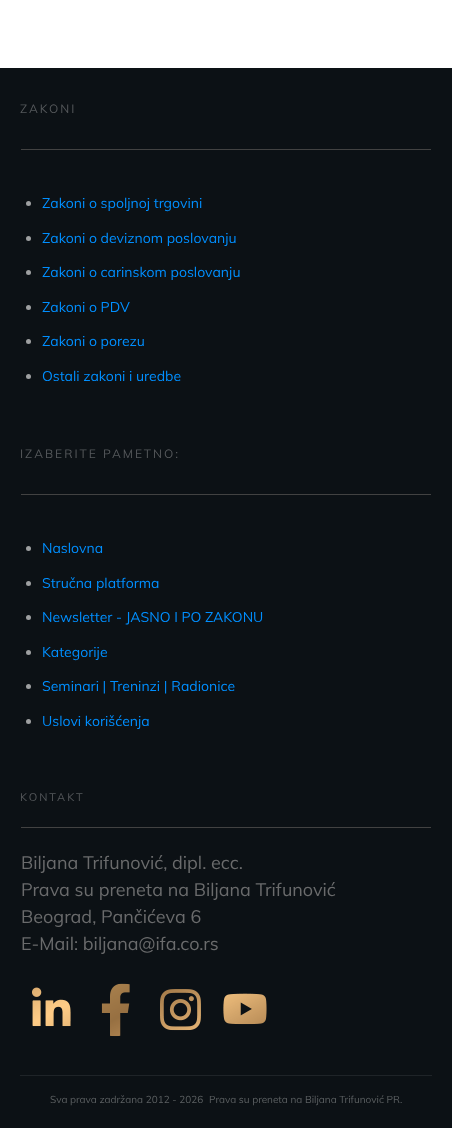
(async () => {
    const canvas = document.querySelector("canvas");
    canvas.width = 452;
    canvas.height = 1128;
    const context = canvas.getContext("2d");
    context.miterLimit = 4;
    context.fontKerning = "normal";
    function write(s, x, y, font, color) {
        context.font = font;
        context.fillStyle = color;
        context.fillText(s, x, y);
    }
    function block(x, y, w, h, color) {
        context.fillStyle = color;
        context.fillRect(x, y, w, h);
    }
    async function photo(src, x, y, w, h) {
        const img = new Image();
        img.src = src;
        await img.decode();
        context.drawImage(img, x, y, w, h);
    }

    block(0, 0, 452, 1128, "rgb(255, 255, 255)");
    block(0, 68, 452, 1060, "rgb(12, 17, 21)");
    block(20, 1075, 412, 1, "rgb(31, 36, 40)");
    context.letterSpacing = "2px";
    write("ZAKONI", 20, 113, "12px Muli", "rgb(85, 88, 91)");
    block(21, 149, 410, 1, "rgb(66, 66, 66)");
    context.fillStyle = "rgb(158, 160, 161)";
    context.beginPath();
    context.arc(28.5, 203.5, 2.5, 0, Math.PI * 2);
    context.fill();
    context.letterSpacing = "0px";
    write("Zakoni o spoljnoj trgovini", 42, 208, "14px Muli", "rgb(0, 143, 255)");
    context.fillStyle = "rgb(158, 160, 161)";
    context.beginPath();
    context.arc(28.5, 238.5, 2.5, 0, Math.PI * 2);
    context.fill();
    write("Zakoni o deviznom poslovanju", 42, 243, "14px Muli", "rgb(0, 143, 255)");
    context.fillStyle = "rgb(158, 160, 161)";
    context.beginPath();
    context.arc(28.5, 272.5, 2.5, 0, Math.PI * 2);
    context.fill();
    write("Zakoni o carinskom poslovanju", 42, 277, "14px Muli", "rgb(0, 143, 255)");
    context.fillStyle = "rgb(158, 160, 161)";
    context.beginPath();
    context.arc(28.5, 307.5, 2.5, 0, Math.PI * 2);
    context.fill();
    write("Zakoni o PDV", 42, 312, "14px Muli", "rgb(0, 143, 255)");
    context.fillStyle = "rgb(158, 160, 161)";
    context.beginPath();
    context.arc(28.5, 341.5, 2.5, 0, Math.PI * 2);
    context.fill();
    write("Zakoni o porezu", 42, 346, "14px Muli", "rgb(0, 143, 255)");
    context.fillStyle = "rgb(158, 160, 161)";
    context.beginPath();
    context.arc(28.5, 376.5, 2.5, 0, Math.PI * 2);
    context.fill();
    write("Ostali zakoni i uredbe", 42, 381, "14px Muli", "rgb(0, 143, 255)");
    context.letterSpacing = "2px";
    write("IZABERITE PAMETNO:", 20, 458, "12px Muli", "rgb(85, 88, 91)");
    block(21, 494, 410, 1, "rgb(66, 66, 66)");
    context.fillStyle = "rgb(158, 160, 161)";
    context.beginPath();
    context.arc(28.5, 548.5, 2.5, 0, Math.PI * 2);
    context.fill();
    context.letterSpacing = "0px";
    write("Naslovna", 42, 553, "14px Muli", "rgb(0, 143, 255)");
    context.fillStyle = "rgb(158, 160, 161)";
    context.beginPath();
    context.arc(28.5, 583.5, 2.5, 0, Math.PI * 2);
    context.fill();
    write("Stručna platforma", 42, 588, "14px Muli", "rgb(0, 143, 255)");
    context.fillStyle = "rgb(158, 160, 161)";
    context.beginPath();
    context.arc(28.5, 617.5, 2.5, 0, Math.PI * 2);
    context.fill();
    write("Newsletter - JASNO I PO ZAKONU", 42, 622, "14px Muli", "rgb(0, 143, 255)");
    context.fillStyle = "rgb(158, 160, 161)";
    context.beginPath();
    context.arc(28.5, 652.5, 2.5, 0, Math.PI * 2);
    context.fill();
    write("Kategorije", 42, 657, "14px Muli", "rgb(0, 143, 255)");
    context.fillStyle = "rgb(158, 160, 161)";
    context.beginPath();
    context.arc(28.5, 686.5, 2.5, 0, Math.PI * 2);
    context.fill();
    write("Seminari | Treninzi | Radionice", 42, 691, "14px Muli", "rgb(0, 143, 255)");
    context.fillStyle = "rgb(158, 160, 161)";
    context.beginPath();
    context.arc(28.5, 721.5, 2.5, 0, Math.PI * 2);
    context.fill();
    write("Uslovi korišćenja", 42, 726, "14px Muli", "rgb(0, 143, 255)");
    context.letterSpacing = "2px";
    write("KONTAKT", 20, 801, "11px Muli", "rgb(85, 88, 91)");
    block(21, 827, 410, 1, "rgb(66, 66, 66)");
    context.letterSpacing = "0px";
    write("Biljana Trifunović, dipl. ecc.", 21, 869, "18px Muli", "rgb(106, 107, 108)");
    write("Prava su preneta na Biljana Trifunović", 21, 896, "18px Muli", "rgb(106, 107, 108)");
    write("Beograd, Pančićeva 6", 21, 923, "18px Muli", "rgb(106, 107, 108)");
    write("E-Mail: biljana@ifa.co.rs", 21, 950, "18px Muli", "rgb(106, 107, 108)");
    await photo("media/1.png", 32, 987, 39, 40);
    await photo("media/2.png", 101, 983, 29, 54);
    await photo("media/3.png", 160, 989, 41, 42);
    await photo("media/4.png", 223, 993, 44, 32);
    write("Sva prava zadržana 2012 - 2026", 50, 1103, "10px Muli", "rgb(92, 96, 98)");
    write("Prava su preneta na Biljana Trifunović PR.", 209, 1103, "10px Muli", "rgb(92, 96, 98)");
})();
